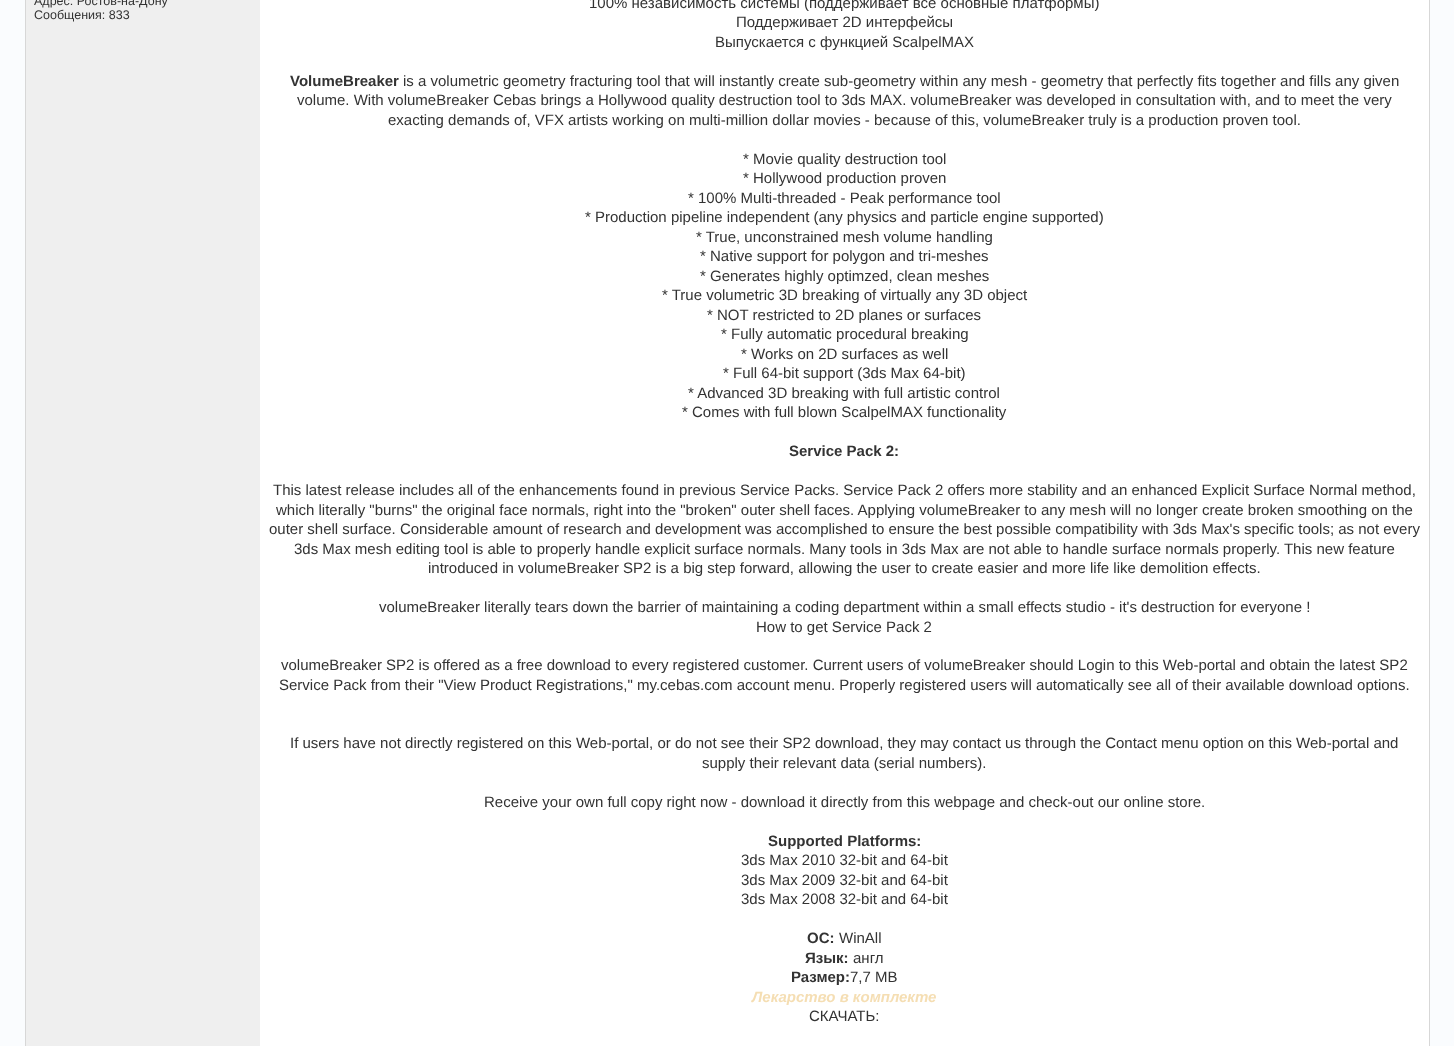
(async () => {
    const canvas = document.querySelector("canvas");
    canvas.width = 1454;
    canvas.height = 1046;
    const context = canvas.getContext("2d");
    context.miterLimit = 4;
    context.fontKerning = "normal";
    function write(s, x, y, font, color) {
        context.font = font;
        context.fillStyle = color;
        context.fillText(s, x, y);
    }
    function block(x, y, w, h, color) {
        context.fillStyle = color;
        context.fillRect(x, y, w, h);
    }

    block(0, 0, 1454, 1046, "rgb(250, 252, 254)");
    context.strokeStyle = "rgb(215, 215, 215)";
    context.strokeRect(25.5, -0.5, 1404, 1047);
    block(26, 0, 234, 1046, "rgb(239, 239, 239)");
    write("Адрес: Ростов-на-Дону", 34, 5, "12.5px Liberation Sans", "rgb(51, 51, 51)");
    write("Сообщения: 833", 34, 19, "12.5px Liberation Sans", "rgb(51, 51, 51)");
    block(260, 0, 1169, 1046, "rgb(255, 255, 255)");
    write("100% независимость системы (поддерживает все основные платформы)", 589, 8, "15px Liberation Sans", "rgb(51, 51, 51)");
    write("Поддерживает 2D интерфейсы", 736, 27, "15px Liberation Sans", "rgb(51, 51, 51)");
    write("Выпускается с функцией ScalpelMAX", 715, 47, "15px Liberation Sans", "rgb(51, 51, 51)");
    write("VolumeBreaker", 290, 86, "bold 15px Liberation Sans", "rgb(51, 51, 51)");
    write("is a volumetric geometry fracturing tool that will instantly create sub-geometry within any mesh - geometry that perfectly fits together and fills any given", 403, 86, "15px Liberation Sans", "rgb(51, 51, 51)");
    write("volume. With volumeBreaker Cebas brings a Hollywood quality destruction tool to 3ds MAX. volumeBreaker was developed in consultation with, and to meet the very", 297, 105, "15px Liberation Sans", "rgb(51, 51, 51)");
    write("exacting demands of, VFX artists working on multi-million dollar movies - because of this, volumeBreaker truly is a production proven tool.", 388, 125, "15px Liberation Sans", "rgb(51, 51, 51)");
    write("* Movie quality destruction tool", 743, 164, "15px Liberation Sans", "rgb(51, 51, 51)");
    write("* Hollywood production proven", 743, 183, "15px Liberation Sans", "rgb(51, 51, 51)");
    write("* 100% Multi-threaded - Peak performance tool", 688, 203, "15px Liberation Sans", "rgb(51, 51, 51)");
    write("* Production pipeline independent (any physics and particle engine supported)", 585, 222, "15px Liberation Sans", "rgb(51, 51, 51)");
    write("* True, unconstrained mesh volume handling", 696, 242, "15px Liberation Sans", "rgb(51, 51, 51)");
    write("* Native support for polygon and tri-meshes", 700, 261, "15px Liberation Sans", "rgb(51, 51, 51)");
    write("* Generates highly optimzed, clean meshes", 700, 281, "15px Liberation Sans", "rgb(51, 51, 51)");
    write("* True volumetric 3D breaking of virtually any 3D object", 662, 300, "15px Liberation Sans", "rgb(51, 51, 51)");
    write("* NOT restricted to 2D planes or surfaces", 707, 320, "15px Liberation Sans", "rgb(51, 51, 51)");
    write("* Fully automatic procedural breaking", 721, 339, "15px Liberation Sans", "rgb(51, 51, 51)");
    write("* Works on 2D surfaces as well", 741, 359, "15px Liberation Sans", "rgb(51, 51, 51)");
    write("* Full 64-bit support (3ds Max 64-bit)", 723, 378, "15px Liberation Sans", "rgb(51, 51, 51)");
    write("* Advanced 3D breaking with full artistic control", 688, 398, "15px Liberation Sans", "rgb(51, 51, 51)");
    write("* Comes with full blown ScalpelMAX functionality", 682, 417, "15px Liberation Sans", "rgb(51, 51, 51)");
    write("Service Pack 2:", 789, 456, "bold 15px Liberation Sans", "rgb(51, 51, 51)");
    write("This latest release includes all of the enhancements found in previous Service Packs. Service Pack 2 offers more stability and an enhanced Explicit Surface Normal method,", 273, 495, "15px Liberation Sans", "rgb(51, 51, 51)");
    write("which literally \"burns\" the original face normals, right into the \"broken\" outer shell faces. Applying volumeBreaker to any mesh will no longer create broken smoothing on the", 276, 515, "15px Liberation Sans", "rgb(51, 51, 51)");
    write("outer shell surface. Considerable amount of research and development was accomplished to ensure the best possible compatibility with 3ds Max's specific tools; as not every", 269, 534, "15px Liberation Sans", "rgb(51, 51, 51)");
    write("3ds Max mesh editing tool is able to properly handle explicit surface normals. Many tools in 3ds Max are not able to handle surface normals properly. This new feature", 294, 554, "15px Liberation Sans", "rgb(51, 51, 51)");
    write("introduced in volumeBreaker SP2 is a big step forward, allowing the user to create easier and more life like demolition effects.", 428, 573, "15px Liberation Sans", "rgb(51, 51, 51)");
    write("volumeBreaker literally tears down the barrier of maintaining a coding department within a small effects studio - it's destruction for everyone !", 379, 612, "15px Liberation Sans", "rgb(51, 51, 51)");
    write("How to get Service Pack 2", 756, 632, "15px Liberation Sans", "rgb(51, 51, 51)");
    write("volumeBreaker SP2 is offered as a free download to every registered customer. Current users of volumeBreaker should Login to this Web-portal and obtain the latest SP2", 281, 670, "15px Liberation Sans", "rgb(51, 51, 51)");
    write("Service Pack from their \"View Product Registrations,\" my.cebas.com account menu. Properly registered users will automatically see all of their available download options.", 279, 690, "15px Liberation Sans", "rgb(51, 51, 51)");
    write("If users have not directly registered on this Web-portal, or do not see their SP2 download, they may contact us through the Contact menu option on this Web-portal and", 290, 748, "15px Liberation Sans", "rgb(51, 51, 51)");
    write("supply their relevant data (serial numbers).", 702, 768, "15px Liberation Sans", "rgb(51, 51, 51)");
    write("Receive your own full copy right now - download it directly from this webpage and check-out our online store.", 484, 807, "15px Liberation Sans", "rgb(51, 51, 51)");
    write("Supported Platforms:", 768, 846, "bold 15px Liberation Sans", "rgb(51, 51, 51)");
    write("3ds Max 2010 32-bit and 64-bit", 741, 865, "15px Liberation Sans", "rgb(51, 51, 51)");
    write("3ds Max 2009 32-bit and 64-bit", 741, 885, "15px Liberation Sans", "rgb(51, 51, 51)");
    write("3ds Max 2008 32-bit and 64-bit", 741, 904, "15px Liberation Sans", "rgb(51, 51, 51)");
    write("ОС:", 807, 943, "bold 15px Liberation Sans", "rgb(51, 51, 51)");
    write("WinAll", 839, 943, "15px Liberation Sans", "rgb(51, 51, 51)");
    write("Язык:", 805, 963, "bold 15px Liberation Sans", "rgb(51, 51, 51)");
    write("англ", 853, 963, "15px Liberation Sans", "rgb(51, 51, 51)");
    write("Размер:", 791, 982, "bold 15px Liberation Sans", "rgb(51, 51, 51)");
    write("7,7 MB", 850, 982, "15px Liberation Sans", "rgb(51, 51, 51)");
    write("Лекарство в комплекте", 752, 1002, "italic bold 15px Liberation Sans", "rgb(245, 222, 179)");
    write("СКАЧАТЬ:", 809, 1021, "15px Liberation Sans", "rgb(51, 51, 51)");
})();
